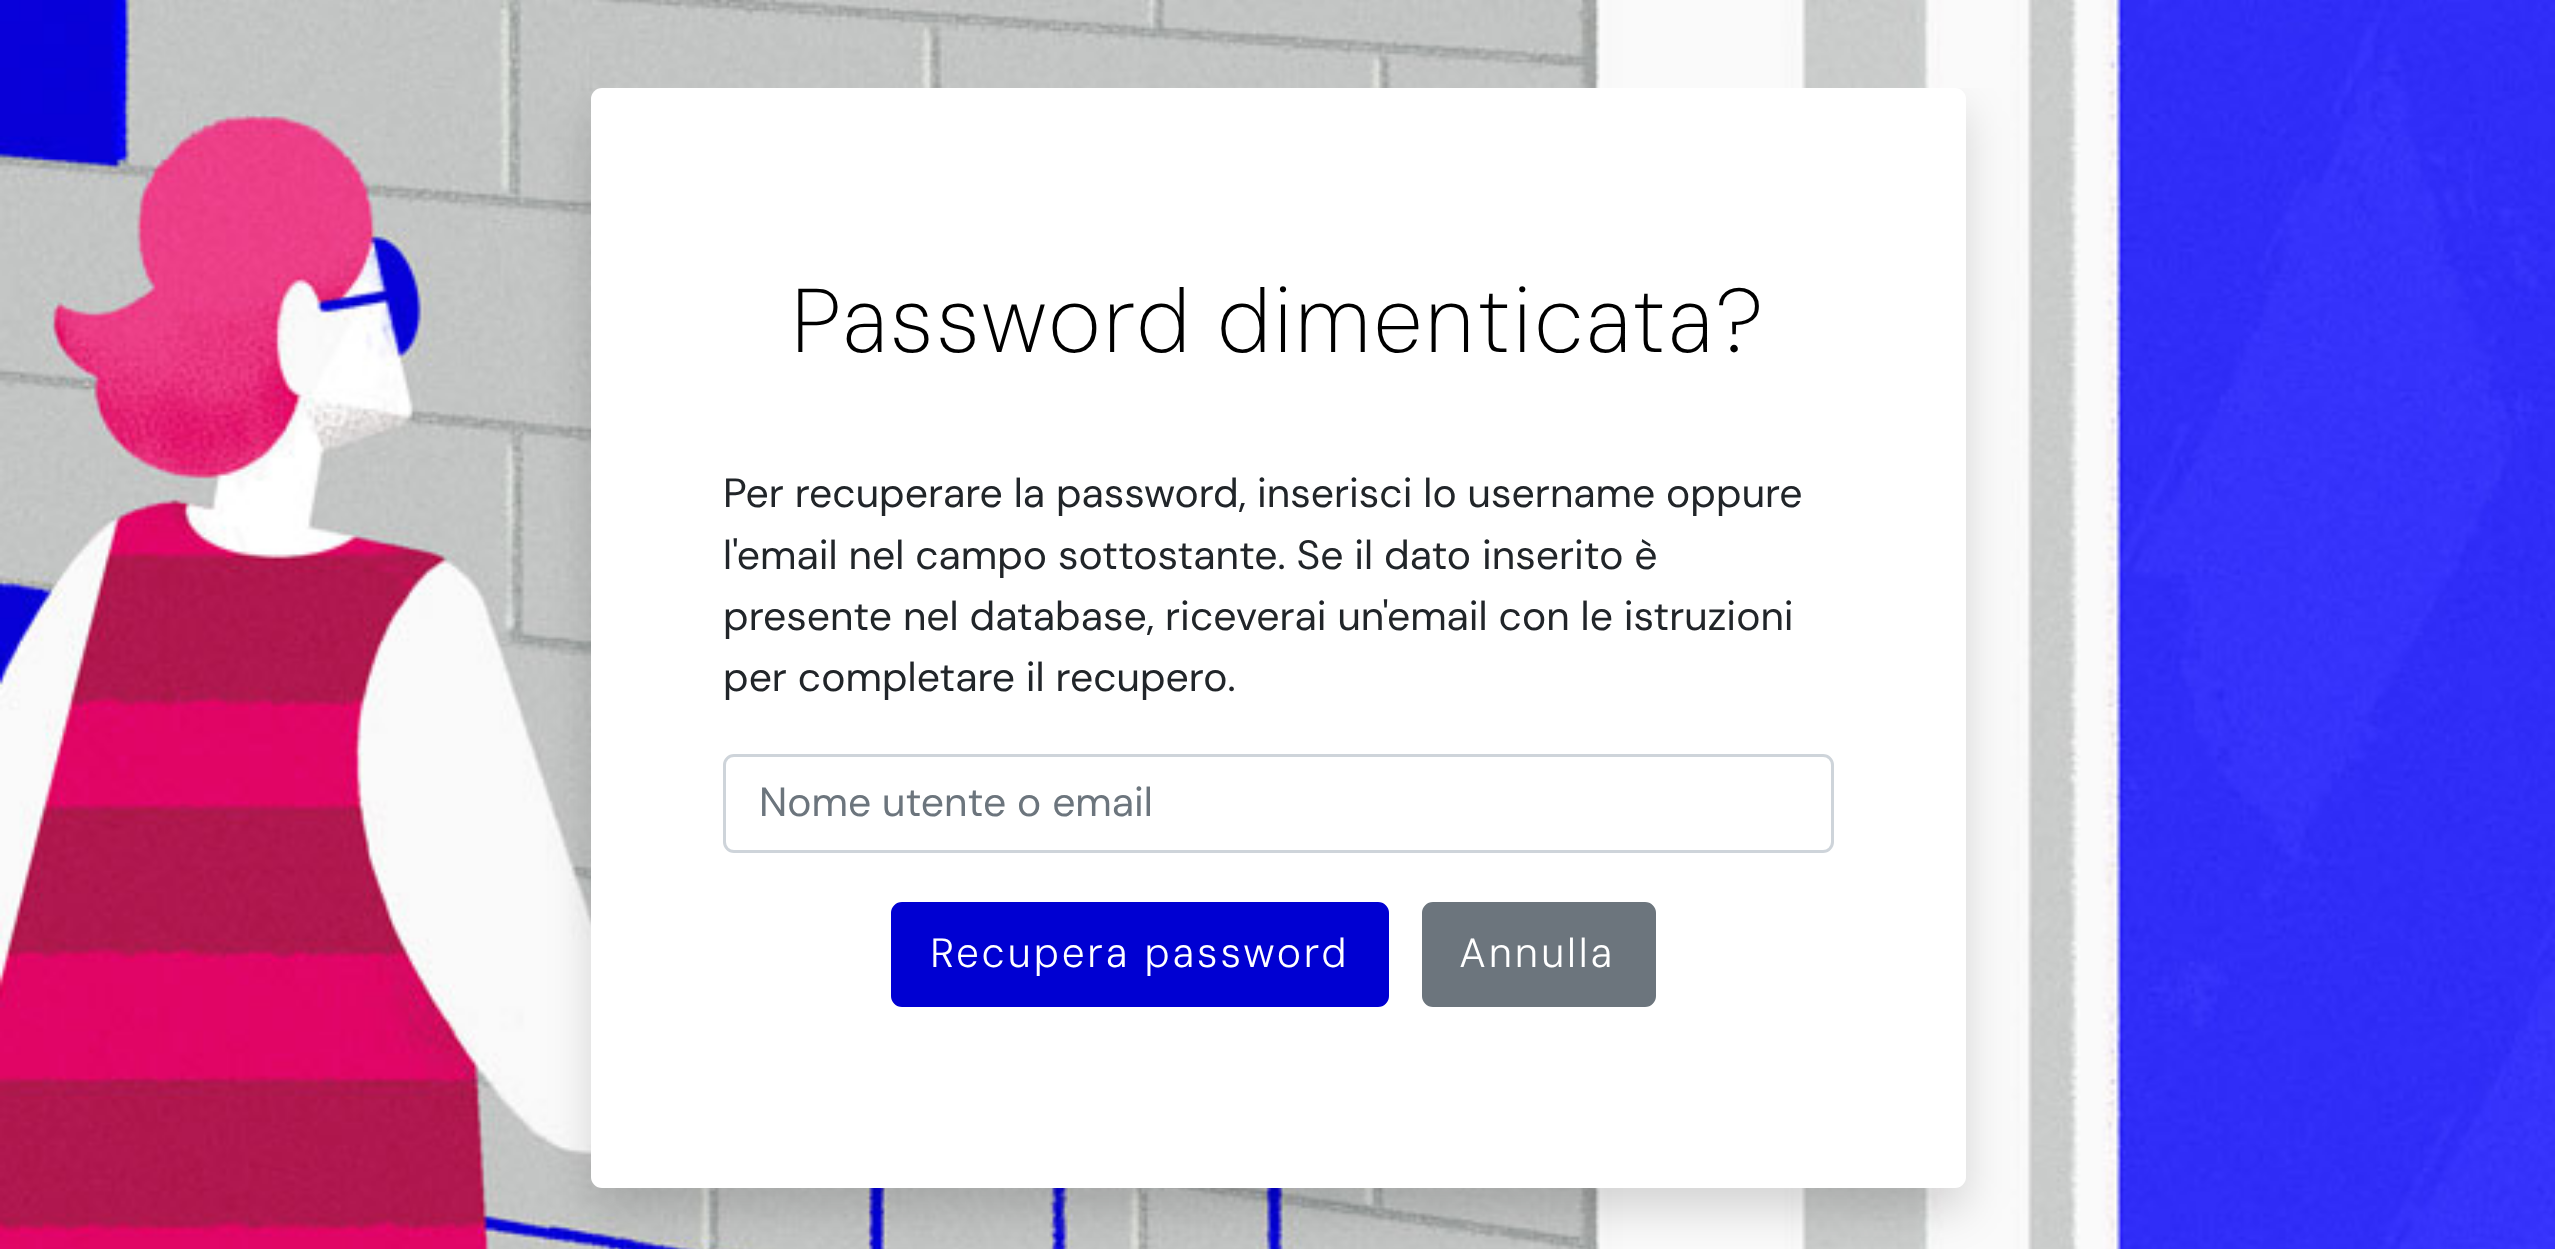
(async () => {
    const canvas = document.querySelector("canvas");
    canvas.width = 2555;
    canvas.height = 1249;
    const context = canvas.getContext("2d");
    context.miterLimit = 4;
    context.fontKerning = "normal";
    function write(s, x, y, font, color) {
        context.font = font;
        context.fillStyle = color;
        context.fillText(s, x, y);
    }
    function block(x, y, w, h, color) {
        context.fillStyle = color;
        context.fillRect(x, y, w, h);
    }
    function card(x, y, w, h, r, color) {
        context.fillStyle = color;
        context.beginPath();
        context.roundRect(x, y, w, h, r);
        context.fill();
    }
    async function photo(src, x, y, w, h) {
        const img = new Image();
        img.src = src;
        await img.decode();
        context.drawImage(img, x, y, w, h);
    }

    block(0, 0, 2555, 1249, "rgb(255, 255, 255)");
    await photo("media/1.png", 0, 0, 2555, 1249);
    context.save();
    context.beginPath();
    context.rect(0, 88, 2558, 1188);
    context.clip();
    context.fillStyle = "rgba(0, 0, 0, 0.15)";
    context.filter = "blur(22px)";
    context.beginPath();
    context.roundRect(591, 110, 1375, 1100, 11);
    context.fill();
    context.filter = "none";
    context.restore();
    card(591, 88, 1375, 1100, 11, "rgb(255, 255, 255)");
    context.letterSpacing = "2.75px";
    context.wordSpacing = "-5px";
    write("Password dimenticata?", 791, 352, "200 90.25px DM Sans", "rgb(0, 0, 0)");
    context.letterSpacing = "0px";
    context.wordSpacing = "0px";
    write("Per recuperare la password, inserisci lo username oppure", 723, 507, "40.9px DM Sans", "rgb(33, 37, 41)");
    write("l'email nel campo sottostante. Se il dato inserito è", 723, 569, "40.9px DM Sans", "rgb(33, 37, 41)");
    write("presente nel database, riceverai un'email con le istruzioni", 723, 630, "40.9px DM Sans", "rgb(33, 37, 41)");
    write("per completare il recupero.", 723, 691, "40.9px DM Sans", "rgb(33, 37, 41)");
    context.beginPath();
    context.roundRect(724.5, 755.5, 1108, 96, 9.5);
    context.strokeStyle = "rgb(206, 212, 218)";
    context.lineWidth = 3;
    context.stroke();
    write("Nome utente o email", 759, 816, "40.9px DM Sans", "rgb(108, 117, 125)");
    context.fillStyle = "rgb(0, 0, 210)";
    context.beginPath();
    context.roundRect(894, 905, 492, 99, 8);
    context.fill();
    context.strokeStyle = "rgb(0, 0, 210)";
    context.lineWidth = 6;
    context.stroke();
    context.letterSpacing = "2.75px";
    write("Recupera password", 930, 967, "300 40.9px DM Sans", "rgb(255, 255, 255)");
    context.fillStyle = "rgb(108, 117, 125)";
    context.beginPath();
    context.roundRect(1425, 905, 228, 99, 8);
    context.fill();
    context.strokeStyle = "rgb(108, 117, 125)";
    context.stroke();
    write("Annulla", 1459, 967, "300 40.9px DM Sans", "rgb(255, 255, 255)");
})();
